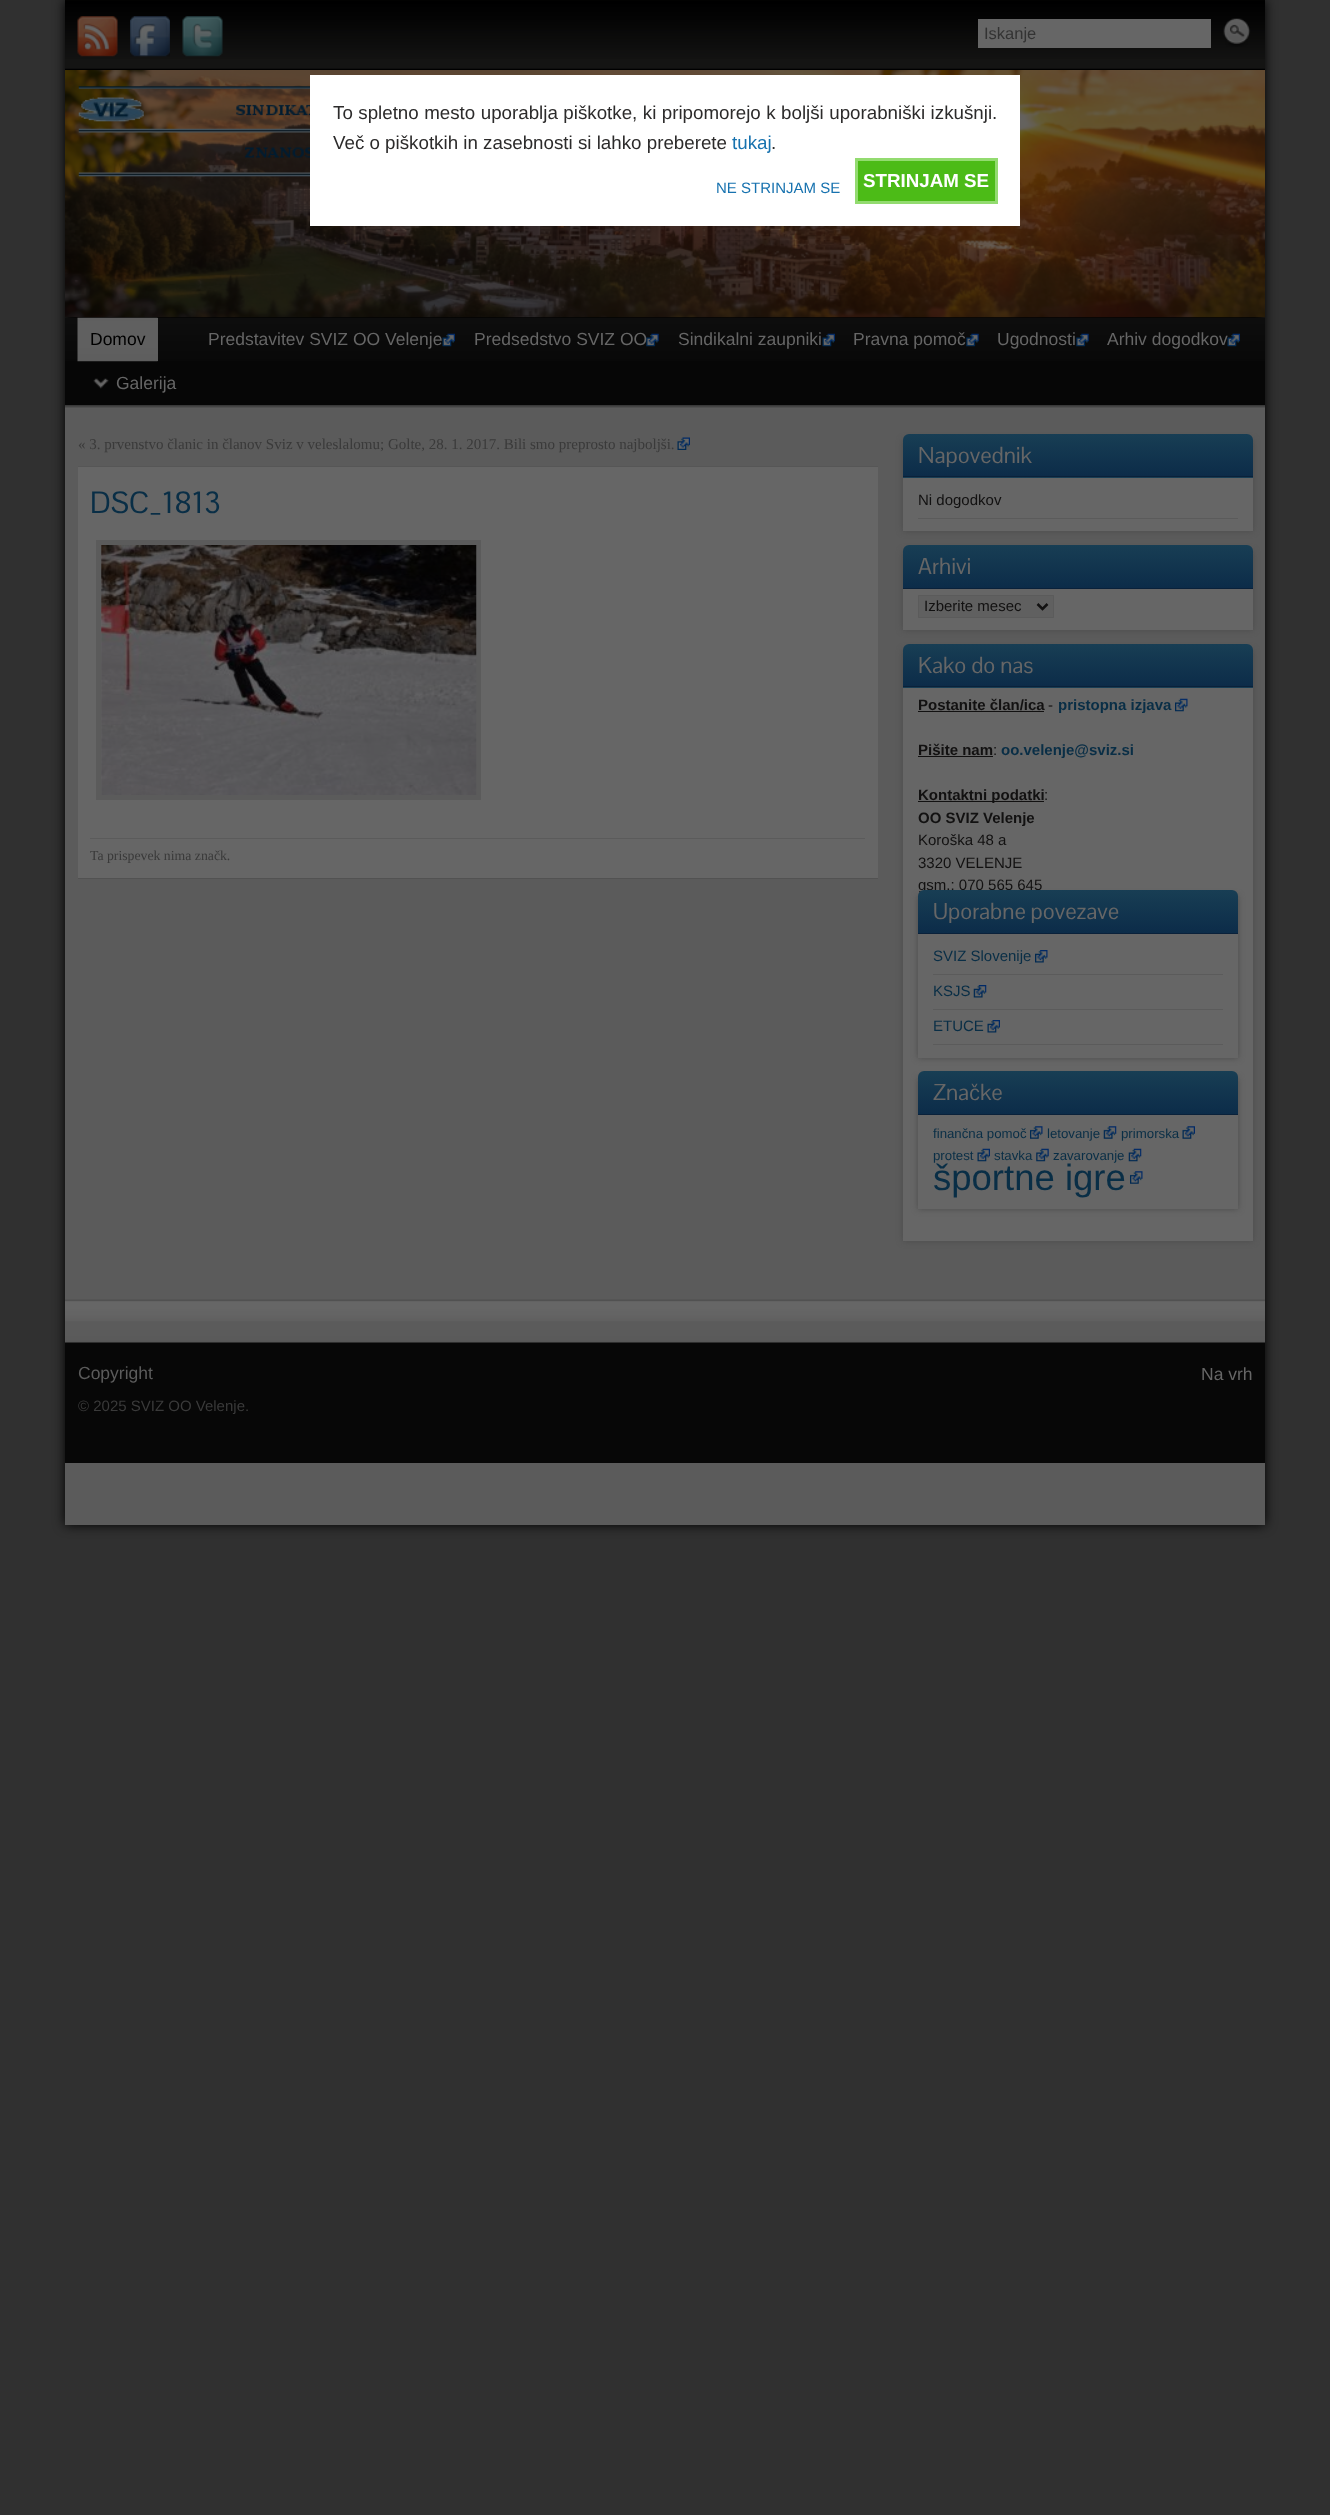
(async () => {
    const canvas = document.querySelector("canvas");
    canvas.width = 1330;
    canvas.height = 2515;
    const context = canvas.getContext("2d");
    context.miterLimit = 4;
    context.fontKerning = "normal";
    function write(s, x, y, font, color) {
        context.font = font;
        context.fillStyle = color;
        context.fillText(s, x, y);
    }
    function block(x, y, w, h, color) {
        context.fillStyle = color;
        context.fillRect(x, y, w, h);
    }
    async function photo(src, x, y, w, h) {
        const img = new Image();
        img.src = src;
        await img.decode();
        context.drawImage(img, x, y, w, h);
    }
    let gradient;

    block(0, 0, 1330, 2515, "rgb(48, 48, 48)");
    context.fillStyle = "rgb(0, 0, 0)";
    context.filter = "blur(6px)";
    context.beginPath();
    context.rect(65, 0, 1200, 1525);
    context.fill();
    context.filter = "none";
    block(65, 0, 1200, 68, "rgb(20, 20, 19)");
    await photo("media/1.png", 65, 0, 1200, 59);
    block(65, 68, 1200, 1, "rgb(14, 14, 14)");
    await photo("media/2.png", 77, 16, 41, 41);
    await photo("media/3.png", 130, 16, 40, 41);
    await photo("media/4.png", 182, 16, 41, 41);
    block(978, 19, 233, 29, "rgb(102, 102, 102)");
    write("Iskanje", 984, 39, "16.5px Liberation Sans", "rgb(51, 51, 51)");
    await photo("media/5.png", 1223, 18, 28, 29);
    block(65, 69, 1200, 1, "rgb(0, 0, 0)");
    await photo("media/6.png", 65, 70, 1200, 248);
    await photo("media/7.png", 78, 86, 232, 91);
    block(65, 361, 1200, 44, "rgb(6, 6, 6)");
    await photo("media/8.png", 65, 317, 1200, 44);
    block(157, 318, 1, 43, "rgb(95, 95, 95)");
    await photo("media/9.png", 77, 317, 81, 45);
    write("Domov", 90, 345, "17.5px Liberation Sans", "rgb(0, 0, 0)");
    await photo("media/10.png", 442, 333, 13, 14);
    write("Predstavitev SVIZ OO Velenje", 208, 345, "17.5px Liberation Sans", "rgb(102, 102, 102)");
    await photo("media/11.png", 646, 333, 13, 14);
    write("Predsedstvo SVIZ OO", 474, 345, "17.5px Liberation Sans", "rgb(102, 102, 102)");
    await photo("media/12.png", 822, 333, 13, 14);
    write("Sindikalni zaupniki", 678, 345, "17.5px Liberation Sans", "rgb(102, 102, 102)");
    await photo("media/11.png", 966, 333, 13, 14);
    write("Pravna pomoč", 853, 345, "17.5px Liberation Sans", "rgb(102, 102, 102)");
    await photo("media/11.png", 1076, 333, 13, 14);
    write("Ugodnosti", 997, 345, "17.5px Liberation Sans", "rgb(102, 102, 102)");
    await photo("media/10.png", 1227, 333, 13, 14);
    write("Arhiv dogodkov", 1107, 345, "17.5px Liberation Sans", "rgb(102, 102, 102)");
    await photo("media/13.png", 93, 378, 16, 11);
    write("Galerija", 116, 389, "17.5px Liberation Sans", "rgb(102, 102, 102)");
    block(65, 405, 1200, 4, "rgb(95, 95, 95)");
    await photo("media/14.png", 65, 405, 1200, 4);
    block(65, 409, 1200, 1116, "rgb(91, 91, 91)");
    write("« 3. prvenstvo članic in članov Sviz v veleslalomu; Golte, 28. 1. 2017. Bili smo preprosto najboljši.", 78, 449, "15px Liberation Serif", "rgb(58, 58, 58)");
    await photo("media/15.png", 677, 437, 13, 13);
    block(78, 467, 800, 411, "rgb(102, 102, 102)");
    block(78, 466, 800, 1, "rgb(86, 86, 86)");
    block(78, 878, 800, 1, "rgb(82, 82, 82)");
    write("DSC_1813", 90, 513, "30px Pontano Sans", "rgb(9, 46, 70)");
    context.strokeStyle = "rgb(91, 91, 91)";
    context.lineWidth = 5;
    context.strokeRect(98.5, 542.5, 380, 255);
    await photo("media/16.png", 101, 545, 376, 250);
    block(90, 838, 775, 1, "rgb(91, 91, 91)");
    write("Ta prispevek nima značk.", 90, 860, "13.75px Liberation Serif", "rgb(58, 58, 58)");
    context.fillStyle = "rgb(75, 75, 75)";
    context.filter = "blur(3px)";
    context.beginPath();
    context.rect(903, 440, 350, 91);
    context.fill();
    context.filter = "none";
    block(903, 478, 350, 53, "rgb(102, 102, 102)");
    gradient = context.createLinearGradient(1078, 434, 1078, 476);
    gradient.addColorStop(0, "rgb(24, 62, 84)");
    gradient.addColorStop(1, "rgb(12, 44, 73)");
    context.fillStyle = gradient;
    context.beginPath();
    context.roundRect(903, 434, 350, 42, [6, 6, 0, 0]);
    context.fill();
    gradient = context.createLinearGradient(1078, 476, 1078, 519);
    gradient.addColorStop(0, "rgb(24, 62, 84)");
    gradient.addColorStop(1, "rgb(12, 44, 73)");
    context.fillStyle = gradient;
    context.fillRect(903, 477, 350, 1);
    block(903, 476, 350, 1, "rgb(10, 33, 58)");
    write("Napovednik", 918, 463, "22.5px Pontano Sans", "rgb(102, 102, 102)");
    block(918, 518, 320, 1, "rgb(91, 91, 91)");
    write("Ni dogodkov", 918, 505, "15px Liberation Sans", "rgb(18, 17, 17)");
    context.fillStyle = "rgb(75, 75, 75)";
    context.filter = "blur(3px)";
    context.beginPath();
    context.rect(903, 551, 350, 79);
    context.fill();
    context.filter = "none";
    block(903, 589, 350, 41, "rgb(102, 102, 102)");
    gradient = context.createLinearGradient(1078, 545, 1078, 588);
    gradient.addColorStop(0, "rgb(24, 62, 84)");
    gradient.addColorStop(1, "rgb(12, 44, 73)");
    context.fillStyle = gradient;
    context.beginPath();
    context.roundRect(903, 545, 350, 43, [6, 6, 0, 0]);
    context.fill();
    block(903, 588, 350, 1, "rgb(10, 33, 58)");
    write("Arhivi", 918, 574, "22.5px Pontano Sans", "rgb(102, 102, 102)");
    context.fillStyle = "rgb(96, 96, 96)";
    context.beginPath();
    context.rect(918.5, 595.5, 135, 22);
    context.fill();
    context.lineWidth = 1;
    context.stroke();
    context.beginPath();
    context.moveTo(1037.5, 604);
    context.lineTo(1042.5, 609);
    context.lineTo(1047.5, 604);
    context.strokeStyle = "rgb(18, 17, 17)";
    context.lineWidth = 2.5;
    context.stroke();
    write("Izberite mesec", 924, 611, "15px Liberation Sans", "rgb(18, 17, 17)");
    context.fillStyle = "rgb(75, 75, 75)";
    context.filter = "blur(3px)";
    context.beginPath();
    context.rect(903, 650, 350, 591);
    context.fill();
    context.filter = "none";
    block(903, 688, 350, 553, "rgb(102, 102, 102)");
    gradient = context.createLinearGradient(1078, 644, 1078, 686);
    gradient.addColorStop(0, "rgb(24, 62, 84)");
    gradient.addColorStop(1, "rgb(12, 44, 73)");
    context.fillStyle = gradient;
    context.beginPath();
    context.roundRect(903, 644, 350, 42, [6, 6, 0, 0]);
    context.fill();
    gradient = context.createLinearGradient(1078, 686, 1078, 729);
    gradient.addColorStop(0, "rgb(24, 62, 84)");
    gradient.addColorStop(1, "rgb(12, 44, 73)");
    context.fillStyle = gradient;
    context.fillRect(903, 687, 350, 1);
    block(903, 686, 350, 1, "rgb(10, 33, 58)");
    write("Kako do nas", 918, 673, "22.5px Pontano Sans", "rgb(102, 102, 102)");
    write("Postanite član/ica", 918, 710, "bold 15px Liberation Sans", "rgb(18, 17, 17)");
    block(918, 711, 126, 1, "rgb(18, 17, 17)");
    write("-", 1048, 710, "15px Liberation Sans", "rgb(18, 17, 17)");
    write("pristopna izjava", 1058, 710, "bold 15px Liberation Sans", "rgb(9, 46, 70)");
    await photo("media/17.png", 1175, 698, 13, 14);
    write("Pišite nam", 918, 755, "bold 15px Liberation Sans", "rgb(18, 17, 17)");
    block(918, 756, 75, 1, "rgb(18, 17, 17)");
    write(":", 993, 755, "15px Liberation Sans", "rgb(18, 17, 17)");
    write("oo.velenje@sviz.si", 1001, 755, "bold 15px Liberation Sans", "rgb(9, 46, 70)");
    block(918, 801, 126, 1, "rgb(18, 17, 17)");
    write("Kontaktni podatki", 918, 800, "bold 15px Liberation Sans", "rgb(18, 17, 17)");
    write(":", 1044, 800, "15px Liberation Sans", "rgb(18, 17, 17)");
    write("OO SVIZ Velenje", 918, 823, "bold 15px Liberation Sans", "rgb(18, 17, 17)");
    write("Koroška 48 a", 918, 845, "15px Liberation Sans", "rgb(18, 17, 17)");
    write("3320 VELENJE", 918, 868, "15px Liberation Sans", "rgb(18, 17, 17)");
    write("gsm.: 070 565 645", 918, 890, "15px Liberation Sans", "rgb(18, 17, 17)");
    context.fillStyle = "rgb(75, 75, 75)";
    context.filter = "blur(3px)";
    context.beginPath();
    context.rect(918, 896, 320, 162);
    context.fill();
    context.filter = "none";
    block(918, 934, 320, 124, "rgb(102, 102, 102)");
    gradient = context.createLinearGradient(1078, 890, 1078, 933);
    gradient.addColorStop(0, "rgb(24, 62, 84)");
    gradient.addColorStop(1, "rgb(12, 44, 73)");
    context.fillStyle = gradient;
    context.beginPath();
    context.roundRect(918, 890, 320, 43, [6, 6, 0, 0]);
    context.fill();
    block(918, 933, 320, 1, "rgb(10, 33, 58)");
    write("Uporabne povezave", 933, 919, "22.5px Pontano Sans", "rgb(102, 102, 102)");
    block(933, 974, 290, 1, "rgb(91, 91, 91)");
    write("SVIZ Slovenije", 933, 961, "15px Liberation Sans", "rgb(9, 46, 70)");
    await photo("media/18.png", 1035, 950, 13, 13);
    block(933, 1009, 290, 1, "rgb(91, 91, 91)");
    write("KSJS", 933, 996, "15px Liberation Sans", "rgb(9, 46, 70)");
    await photo("media/19.png", 973, 985, 14, 13);
    block(933, 1044, 290, 1, "rgb(91, 91, 91)");
    write("ETUCE", 933, 1031, "15px Liberation Sans", "rgb(9, 46, 70)");
    await photo("media/20.png", 987, 1020, 13, 13);
    context.fillStyle = "rgb(75, 75, 75)";
    context.filter = "blur(3px)";
    context.beginPath();
    context.rect(918, 1078, 320, 131);
    context.fill();
    context.filter = "none";
    block(918, 1115, 320, 94, "rgb(102, 102, 102)");
    gradient = context.createLinearGradient(1078, 1071, 1078, 1114);
    gradient.addColorStop(0, "rgb(24, 62, 84)");
    gradient.addColorStop(1, "rgb(12, 44, 73)");
    context.fillStyle = gradient;
    context.beginPath();
    context.roundRect(918, 1071, 320, 43, [6, 6, 0, 0]);
    context.fill();
    block(918, 1114, 320, 1, "rgb(10, 33, 58)");
    write("Značke", 933, 1100, "22.5px Pontano Sans", "rgb(102, 102, 102)");
    write("finančna pomoč", 933, 1138, "13.25px Liberation Sans", "rgb(9, 46, 70)");
    await photo("media/21.png", 1030, 1126, 13, 13);
    write("letovanje", 1047, 1138, "13.25px Liberation Sans", "rgb(9, 46, 70)");
    await photo("media/22.png", 1103, 1126, 14, 13);
    write("primorska", 1121, 1138, "13.25px Liberation Sans", "rgb(9, 46, 70)");
    await photo("media/23.png", 1182, 1126, 13, 13);
    write("protest", 933, 1160, "13.25px Liberation Sans", "rgb(9, 46, 70)");
    await photo("media/24.png", 977, 1148, 13, 14);
    write("stavka", 994, 1160, "13.25px Liberation Sans", "rgb(9, 46, 70)");
    await photo("media/25.png", 1036, 1148, 13, 14);
    write("zavarovanje", 1053, 1160, "13.25px Liberation Sans", "rgb(9, 46, 70)");
    await photo("media/26.png", 1128, 1148, 14, 14);
    write("športne igre", 933, 1190, "36.5px Liberation Sans", "rgb(9, 46, 70)");
    await photo("media/27.png", 1130, 1171, 13, 13);
    block(65, 1300, 1200, 163, "rgb(7, 7, 7)");
    await photo("media/28.png", 65, 1300, 1200, 43);
    block(65, 1299, 1200, 1, "rgb(85, 85, 85)");
    write("Copyright", 78, 1379, "17.5px Liberation Sans", "rgb(91, 91, 91)");
    write("© 2025 SVIZ OO Velenje.", 78, 1411, "15px Liberation Sans", "rgb(58, 58, 58)");
    write("Na vrh", 1201, 1380, "17.5px Liberation Sans", "rgb(102, 102, 102)");
    block(310, 75, 710, 151, "rgb(255, 255, 255)");
    context.wordSpacing = "0.25px";
    write("To spletno mesto uporablja piškotke, ki pripomorejo k boljši uporabniški izkušnji.", 333, 119, "18.75px Liberation Sans", "rgb(44, 43, 43)");
    context.wordSpacing = "0px";
    write("Več o piškotkih in zasebnosti si lahko preberete", 333, 149, "18.75px Liberation Sans", "rgb(44, 43, 43)");
    write("tukaj", 732, 149, "18.75px Liberation Sans", "rgb(23, 114, 175)");
    write(".", 771, 149, "18.75px Liberation Sans", "rgb(44, 43, 43)");
    write("NE STRINJAM SE", 716, 193, "15px Liberation Sans", "rgb(23, 114, 175)");
    context.fillStyle = "rgb(76, 187, 23)";
    context.beginPath();
    context.rect(856.5, 159.5, 140, 43);
    context.fill();
    context.strokeStyle = "rgb(147, 219, 112)";
    context.lineWidth = 3;
    context.stroke();
    write("STRINJAM SE", 863, 187, "bold 18.75px Liberation Sans", "rgb(255, 255, 255)");
})();
